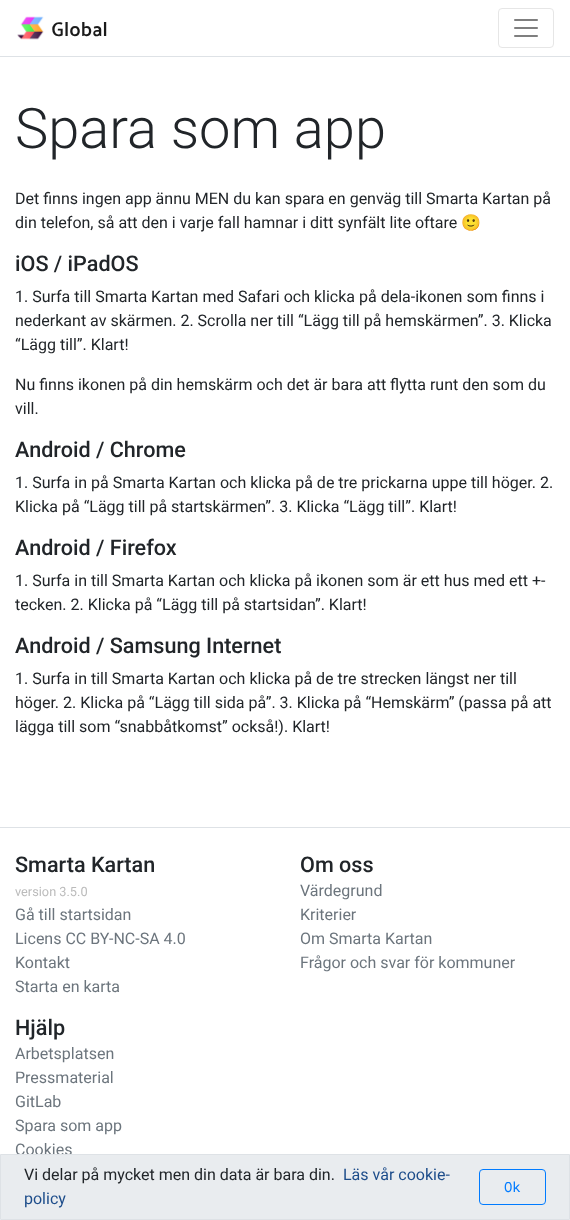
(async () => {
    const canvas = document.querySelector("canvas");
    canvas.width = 570;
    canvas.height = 1220;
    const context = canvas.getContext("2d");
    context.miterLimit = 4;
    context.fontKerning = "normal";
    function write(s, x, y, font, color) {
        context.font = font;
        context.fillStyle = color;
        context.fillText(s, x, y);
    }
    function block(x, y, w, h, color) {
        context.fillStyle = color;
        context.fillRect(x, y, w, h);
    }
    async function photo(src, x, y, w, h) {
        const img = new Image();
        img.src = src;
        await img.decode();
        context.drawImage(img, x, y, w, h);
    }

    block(0, 0, 570, 1220, "rgb(255, 255, 255)");
    block(0, 56, 570, 1, "rgb(222, 226, 230)");
    await photo("media/1.png", 17, 16, 27, 24);
    write("Global", 51, 36, "600 20px Palanquin", "rgb(26, 26, 26)");
    context.beginPath();
    context.roundRect(498.5, 8.5, 55, 39, 3.5);
    context.strokeStyle = "rgb(230, 230, 230)";
    context.stroke();
    await photo("media/2.png", 514, 19, 24, 18);
    write("Spara som app", 15, 148, "300 56px Roboto", "rgb(33, 37, 41)");
    write("Det finns ingen app ännu MEN du kan spara en genväg till Smarta Kartan på", 15, 204, "16px Roboto", "rgb(33, 37, 41)");
    write("din telefon, så att den i varje fall hamnar i ditt synfält lite oftare", 15, 228, "16px Roboto", "rgb(33, 37, 41)");
    write("🙂", 461, 228, "16px Noto Color Emoji", "rgb(33, 37, 41)");
    write("iOS / iPadOS", 15, 271, "500 21.6px Roboto", "rgb(33, 37, 41)");
    write("1. Surfa till Smarta Kartan med Safari och klicka på dela-ikonen som finns i", 15, 302, "16px Roboto", "rgb(33, 37, 41)");
    write("nederkant av skärmen. 2. Scrolla ner till “Lägg till på hemskärmen”. 3. Klicka", 15, 326, "16px Roboto", "rgb(33, 37, 41)");
    write("“Lägg till”. Klart!", 15, 350, "16px Roboto", "rgb(33, 37, 41)");
    write("Nu finns ikonen på din hemskärm och det är bara att flytta runt den som du", 15, 390, "16px Roboto", "rgb(33, 37, 41)");
    write("vill.", 15, 414, "16px Roboto", "rgb(33, 37, 41)");
    write("Android / Chrome", 15, 457, "500 21.6px Roboto", "rgb(33, 37, 41)");
    write("1. Surfa in på Smarta Kartan och klicka på de tre prickarna uppe till höger. 2.", 15, 488, "16px Roboto", "rgb(33, 37, 41)");
    write("Klicka på “Lägg till på startskärmen”. 3. Klicka “Lägg till”. Klart!", 15, 512, "16px Roboto", "rgb(33, 37, 41)");
    write("Android / Firefox", 15, 555, "500 21.6px Roboto", "rgb(33, 37, 41)");
    write("1. Surfa in till Smarta Kartan och klicka på ikonen som är ett hus med ett +-", 15, 586, "16px Roboto", "rgb(33, 37, 41)");
    write("tecken. 2. Klicka på “Lägg till på startsidan”. Klart!", 15, 610, "16px Roboto", "rgb(33, 37, 41)");
    write("Android / Samsung Internet", 15, 653, "500 21.6px Roboto", "rgb(33, 37, 41)");
    write("1. Surfa in till Smarta Kartan och klicka på de tre strecken längst ner till", 15, 684, "16px Roboto", "rgb(33, 37, 41)");
    write("höger. 2. Klicka på “Lägg till sida på”. 3. Klicka på “Hemskärm” (passa på att", 15, 708, "16px Roboto", "rgb(33, 37, 41)");
    write("lägga till som “snabbåtkomst” också!). Klart!", 15, 732, "16px Roboto", "rgb(33, 37, 41)");
    block(0, 827, 570, 1, "rgb(222, 226, 230)");
    write("Smarta Kartan", 15, 872, "500 21.6px Roboto", "rgb(33, 37, 41)");
    write("version 3.5.0", 15, 896, "12.75px Roboto", "rgb(187, 187, 187)");
    write("Gå till startsidan", 15, 920, "16px Roboto", "rgb(108, 117, 125)");
    write("Licens CC BY-NC-SA 4.0", 15, 944, "16px Roboto", "rgb(108, 117, 125)");
    write("Kontakt", 15, 968, "16px Roboto", "rgb(108, 117, 125)");
    write("Starta en karta", 15, 992, "16px Roboto", "rgb(108, 117, 125)");
    write("Om oss", 300, 872, "500 21.6px Roboto", "rgb(33, 37, 41)");
    write("Värdegrund", 300, 896, "16px Roboto", "rgb(108, 117, 125)");
    write("Kriterier", 300, 920, "16px Roboto", "rgb(108, 117, 125)");
    write("Om Smarta Kartan", 300, 944, "16px Roboto", "rgb(108, 117, 125)");
    write("Frågor och svar för kommuner", 300, 968, "16px Roboto", "rgb(108, 117, 125)");
    write("Hjälp", 15, 1035, "500 21.6px Roboto", "rgb(33, 37, 41)");
    write("Arbetsplatsen", 15, 1059, "16px Roboto", "rgb(108, 117, 125)");
    write("Pressmaterial", 15, 1083, "16px Roboto", "rgb(108, 117, 125)");
    write("GitLab", 15, 1107, "16px Roboto", "rgb(108, 117, 125)");
    write("Spara som app", 15, 1131, "16px Roboto", "rgb(108, 117, 125)");
    write("Cookies", 15, 1155, "16px Roboto", "rgb(108, 117, 125)");
    context.fillStyle = "rgb(233, 236, 239)";
    context.beginPath();
    context.rect(0.5, 1154.5, 569, 65);
    context.fill();
    context.strokeStyle = "rgb(222, 226, 230)";
    context.stroke();
    write("Vi delar på mycket men din data är bara din.", 24, 1180, "16px Roboto", "rgb(33, 37, 41)");
    write("Läs vår cookie-", 343, 1180, "16px Roboto", "rgb(28, 76, 138)");
    write("policy", 24, 1204, "16px Roboto", "rgb(28, 76, 138)");
    context.beginPath();
    context.roundRect(479.5, 1169.5, 66, 35, 3.5);
    context.strokeStyle = "rgb(0, 123, 255)";
    context.stroke();
    write("Ok", 504, 1192, "14px Roboto Mono", "rgb(0, 123, 255)");
})();
